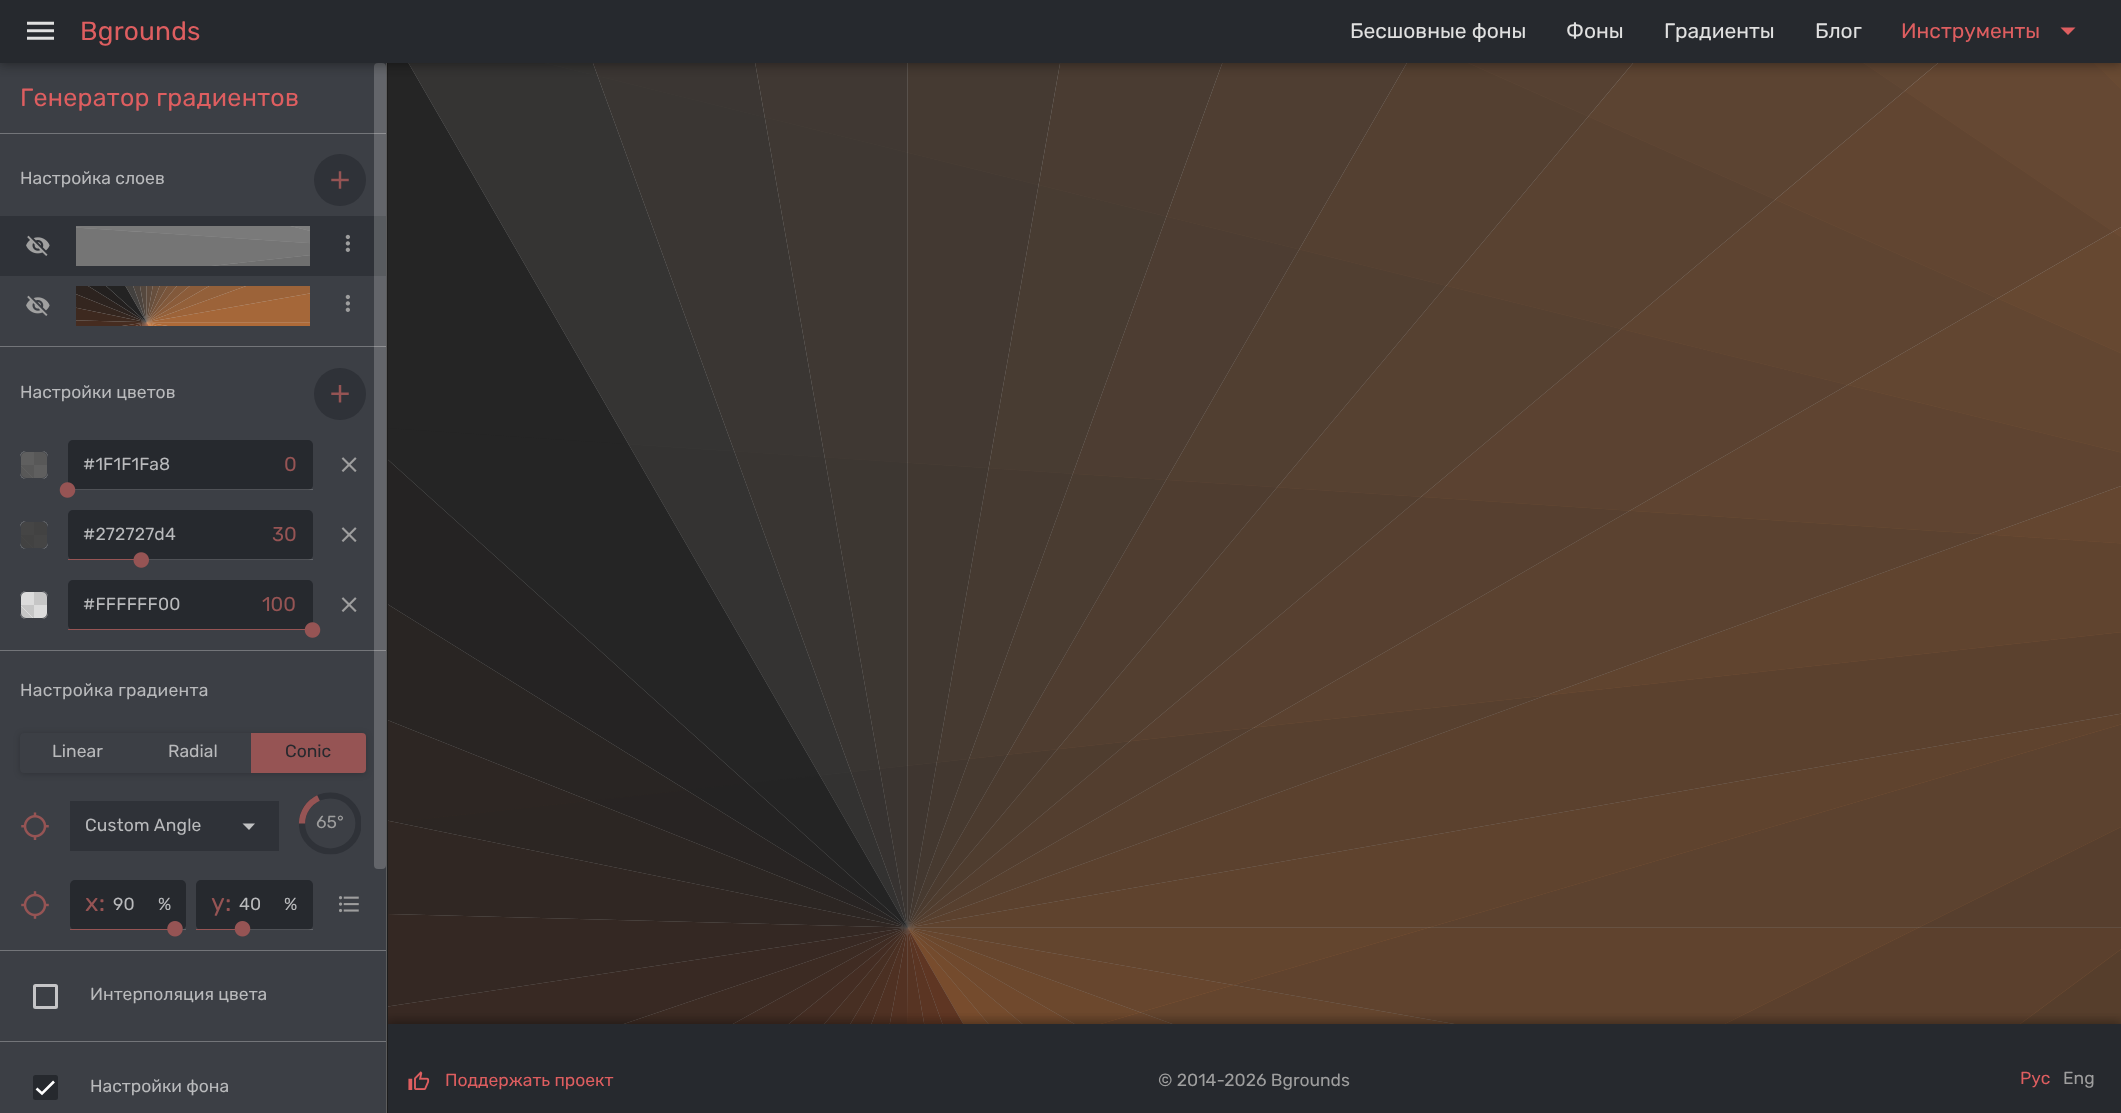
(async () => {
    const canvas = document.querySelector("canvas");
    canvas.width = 2121;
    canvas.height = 1113;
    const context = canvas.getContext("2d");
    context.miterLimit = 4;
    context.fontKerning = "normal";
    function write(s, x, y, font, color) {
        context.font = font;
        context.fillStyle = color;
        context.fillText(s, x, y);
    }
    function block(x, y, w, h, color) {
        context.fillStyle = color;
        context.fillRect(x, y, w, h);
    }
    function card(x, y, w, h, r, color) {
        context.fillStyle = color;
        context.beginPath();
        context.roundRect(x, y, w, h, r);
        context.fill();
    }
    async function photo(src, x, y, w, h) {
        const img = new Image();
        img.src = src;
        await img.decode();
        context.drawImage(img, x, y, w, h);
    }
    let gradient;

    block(0, 0, 2121, 1113, "rgb(255, 255, 255)");
    block(0, 0, 2121, 63, "rgb(38, 41, 46)");
    await photo("media/1.png", 27, 21, 27, 19);
    context.fillStyle = "rgb(222, 94, 96)";
    context.beginPath();
    context.moveTo(2060.5, 27.5);
    context.lineTo(2075.5, 27.5);
    context.lineTo(2068, 35);
    context.closePath();
    context.fill();
    block(387, 63, 1, 1050, "rgb(29, 29, 29)");
    block(386, 63, 1, 1050, "rgb(92, 92, 92)");
    block(0, 63, 386, 1050, "rgb(60, 63, 69)");
    block(0, 133, 386, 1, "rgb(115, 117, 121)");
    block(0, 216, 386, 60, "rgb(47, 50, 56)");
    block(0, 346, 386, 1, "rgb(115, 117, 121)");
    block(0, 650, 386, 1, "rgb(115, 117, 121)");
    context.fillStyle = "rgba(0, 0, 0, 0.2)";
    context.filter = "blur(3px)";
    context.beginPath();
    context.roundRect(20, 734, 346, 40, 4);
    context.fill();
    context.filter = "none";
    card(374, 63, 12, 806, 4, "rgba(255, 255, 255, 0.2)");
    await photo("media/19.png", 388, 63, 1733, 961);
    await photo("media/20.png", 388, 63, 1733, 961);
    context.save();
    context.beginPath();
    context.moveTo(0, 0);
    context.lineTo(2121, 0);
    context.lineTo(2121, 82);
    context.lineTo(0, 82);
    context.closePath();
    context.moveTo(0, 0);
    context.lineTo(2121, 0);
    context.lineTo(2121, 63);
    context.lineTo(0, 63);
    context.closePath();
    context.clip("evenodd");
    context.fillStyle = "rgba(0, 0, 0, 0.24)";
    context.filter = "blur(6px)";
    context.beginPath();
    context.rect(0, 0, 2121, 63);
    context.fill();
    context.filter = "none";
    context.restore();
    context.save();
    context.beginPath();
    context.moveTo(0, 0);
    context.lineTo(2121, 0);
    context.lineTo(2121, 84);
    context.lineTo(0, 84);
    context.closePath();
    context.moveTo(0, 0);
    context.lineTo(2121, 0);
    context.lineTo(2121, 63);
    context.lineTo(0, 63);
    context.closePath();
    context.clip("evenodd");
    context.fillStyle = "rgba(0, 0, 0, 0.2)";
    context.filter = "blur(6px)";
    context.beginPath();
    context.rect(-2, -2, 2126, 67);
    context.fill();
    context.filter = "none";
    context.restore();
    context.letterSpacing = "0.25px";
    write("Bgrounds", 80, 40, "300 26.25px Rubik", "rgb(222, 94, 96)");
    context.letterSpacing = "0px";
    write("Бесшовные фоны", 1350, 38, "300 21px Rubik", "rgb(224, 224, 224)");
    write("Фоны", 1566, 38, "300 21px Rubik", "rgb(224, 224, 224)");
    write("Градиенты", 1664, 38, "300 21px Rubik", "rgb(224, 224, 224)");
    write("Блог", 1815, 38, "300 21px Rubik", "rgb(224, 224, 224)");
    write("Инструменты", 1901, 38, "300 21px Rubik", "rgb(222, 94, 96)");
    context.letterSpacing = "0.3px";
    write("Генератор градиентов", 20, 106, "300 25px Rubik", "rgb(222, 94, 96)");
    context.letterSpacing = "0px";
    write("Настройка слоев", 20, 184, "300 17.5px Rubik", "rgb(185, 186, 188)");
    context.fillStyle = "rgb(47, 50, 56)";
    context.beginPath();
    context.arc(340, 180, 26, 0, Math.PI * 2);
    context.fill();
    await photo("media/2.png", 331, 171, 18, 18);
    await photo("media/3.png", 26, 235, 24, 21);
    block(76, 226, 234, 40, "rgb(199, 199, 199)");
    await photo("media/4.png", 76, 226, 234, 40);
    await photo("media/5.png", 345, 234, 5, 18);
    await photo("media/6.png", 26, 295, 24, 21);
    block(76, 286, 234, 40, "rgb(199, 199, 199)");
    await photo("media/7.png", 76, 286, 234, 40);
    await photo("media/8.png", 345, 294, 5, 18);
    write("Настройки цветов", 20, 398, "300 17.5px Rubik", "rgb(185, 186, 188)");
    context.fillStyle = "rgb(47, 50, 56)";
    context.beginPath();
    context.arc(340, 394, 26, 0, Math.PI * 2);
    context.fill();
    await photo("media/9.png", 331, 385, 18, 18);
    card(20, 451, 28, 28, 6, "rgb(220, 220, 220)");
    gradient = context.createLinearGradient(34, 465, 61, 438);
    gradient.addColorStop(0.25, "rgba(0, 0, 0, 0.1)");
    gradient.addColorStop(0.25, "rgba(0, 0, 0, 0)");
    gradient.addColorStop(0.75, "rgba(0, 0, 0, 0)");
    gradient.addColorStop(0.75, "rgba(0, 0, 0, 0.1)");
    context.fillStyle = gradient;
    context.fillRect(34, 452, 13, 13);
    gradient = context.createLinearGradient(6.3, 493, 34, 465);
    gradient.addColorStop(0.25, "rgba(0, 0, 0, 0.1)");
    gradient.addColorStop(0.25, "rgba(0, 0, 0, 0)");
    gradient.addColorStop(0.75, "rgba(0, 0, 0, 0)");
    gradient.addColorStop(0.75, "rgba(0, 0, 0, 0.1)");
    context.fillStyle = gradient;
    context.fillRect(21, 465, 13, 13);
    gradient = context.createLinearGradient(20, 479, 48, 451);
    gradient.addColorStop(0.25, "rgba(0, 0, 0, 0.1)");
    gradient.addColorStop(0.25, "rgba(0, 0, 0, 0)");
    gradient.addColorStop(0.75, "rgba(0, 0, 0, 0)");
    gradient.addColorStop(0.75, "rgba(0, 0, 0, 0.1)");
    context.fillStyle = gradient;
    context.beginPath();
    context.roundRect(20, 451, 28, 28, 6);
    context.fill();
    context.fillStyle = "rgba(31, 31, 31, 0.66)";
    context.beginPath();
    context.roundRect(20.5, 451.5, 27, 27, 5.5);
    context.fill();
    context.strokeStyle = "rgb(60, 63, 69)";
    context.stroke();
    card(68, 440, 245, 50, 5, "rgb(38, 41, 46)");
    context.letterSpacing = "0.2px";
    write("#1F1F1Fa8", 83, 470, "300 17.5px Rubik", "rgb(185, 186, 188)");
    context.letterSpacing = "0px";
    write("0", 284, 471, "300 20px Rubik", "rgb(150, 84, 84)");
    block(68, 489, 245, 1, "rgba(255, 255, 255, 0.1)");
    block(68, 489, 245, 1, "rgba(255, 255, 255, 0.1)");
    await photo("media/10.png", 59, 482, 17, 16);
    await photo("media/11.png", 341, 457, 16, 15);
    card(20, 521, 28, 28, 6, "rgb(220, 220, 220)");
    gradient = context.createLinearGradient(34, 535, 61, 508);
    gradient.addColorStop(0.25, "rgba(0, 0, 0, 0.1)");
    gradient.addColorStop(0.25, "rgba(0, 0, 0, 0)");
    gradient.addColorStop(0.75, "rgba(0, 0, 0, 0)");
    gradient.addColorStop(0.75, "rgba(0, 0, 0, 0.1)");
    context.fillStyle = gradient;
    context.fillRect(34, 522, 13, 13);
    gradient = context.createLinearGradient(6.3, 563, 34, 535);
    gradient.addColorStop(0.25, "rgba(0, 0, 0, 0.1)");
    gradient.addColorStop(0.25, "rgba(0, 0, 0, 0)");
    gradient.addColorStop(0.75, "rgba(0, 0, 0, 0)");
    gradient.addColorStop(0.75, "rgba(0, 0, 0, 0.1)");
    context.fillStyle = gradient;
    context.fillRect(21, 535, 13, 13);
    gradient = context.createLinearGradient(20, 549, 48, 521);
    gradient.addColorStop(0.25, "rgba(0, 0, 0, 0.1)");
    gradient.addColorStop(0.25, "rgba(0, 0, 0, 0)");
    gradient.addColorStop(0.75, "rgba(0, 0, 0, 0)");
    gradient.addColorStop(0.75, "rgba(0, 0, 0, 0.1)");
    context.fillStyle = gradient;
    context.beginPath();
    context.roundRect(20, 521, 28, 28, 6);
    context.fill();
    context.fillStyle = "rgba(39, 39, 39, 0.83)";
    context.beginPath();
    context.roundRect(20.5, 521.5, 27, 27, 5.5);
    context.fill();
    context.stroke();
    card(68, 510, 245, 50, 5, "rgb(38, 41, 46)");
    context.letterSpacing = "0.2px";
    write("#272727d4", 83, 540, "300 17.5px Rubik", "rgb(185, 186, 188)");
    context.letterSpacing = "0px";
    write("30", 272, 541, "300 20px Rubik", "rgb(150, 84, 84)");
    block(68, 559, 245, 1, "rgba(255, 255, 255, 0.1)");
    block(68, 559, 245, 1, "rgba(255, 255, 255, 0.1)");
    card(68, 559, 73, 1, 0.5, "rgb(150, 84, 84)");
    await photo("media/12.png", 133, 552, 16, 16);
    await photo("media/11.png", 341, 527, 16, 15);
    card(20, 591, 28, 28, 6, "rgb(220, 220, 220)");
    gradient = context.createLinearGradient(34, 605, 61, 578);
    gradient.addColorStop(0.25, "rgba(0, 0, 0, 0.1)");
    gradient.addColorStop(0.25, "rgba(0, 0, 0, 0)");
    gradient.addColorStop(0.75, "rgba(0, 0, 0, 0)");
    gradient.addColorStop(0.75, "rgba(0, 0, 0, 0.1)");
    context.fillStyle = gradient;
    context.fillRect(34, 592, 13, 13);
    gradient = context.createLinearGradient(6.3, 633, 34, 605);
    gradient.addColorStop(0.25, "rgba(0, 0, 0, 0.1)");
    gradient.addColorStop(0.25, "rgba(0, 0, 0, 0)");
    gradient.addColorStop(0.75, "rgba(0, 0, 0, 0)");
    gradient.addColorStop(0.75, "rgba(0, 0, 0, 0.1)");
    context.fillStyle = gradient;
    context.fillRect(21, 605, 13, 13);
    gradient = context.createLinearGradient(20, 619, 48, 591);
    gradient.addColorStop(0.25, "rgba(0, 0, 0, 0.1)");
    gradient.addColorStop(0.25, "rgba(0, 0, 0, 0)");
    gradient.addColorStop(0.75, "rgba(0, 0, 0, 0)");
    gradient.addColorStop(0.75, "rgba(0, 0, 0, 0.1)");
    context.fillStyle = gradient;
    context.beginPath();
    context.roundRect(20.5, 591.5, 27, 27, 5.5);
    context.fill();
    context.stroke();
    card(68, 580, 245, 50, 5, "rgb(38, 41, 46)");
    context.letterSpacing = "0.2px";
    write("#FFFFFF00", 83, 610, "300 17.5px Rubik", "rgb(185, 186, 188)");
    context.letterSpacing = "0px";
    write("100", 262, 611, "300 20px Rubik", "rgb(150, 84, 84)");
    card(68, 629, 245, 1, 0.5, "rgb(150, 84, 84)");
    await photo("media/13.png", 304, 622, 17, 16);
    await photo("media/11.png", 341, 597, 16, 15);
    context.letterSpacing = "0.3px";
    write("Настройка градиента", 20, 696, "300 17.5px Rubik", "rgb(185, 186, 188)");
    context.fillStyle = "rgb(60, 63, 69)";
    context.beginPath();
    context.roundRect(20, 733, 115, 40, [4, 0, 0, 4]);
    context.fill();
    context.letterSpacing = "0px";
    write("Linear", 52, 757, "300 17.5px Rubik", "rgb(185, 186, 188)");
    block(135, 733, 116, 40, "rgb(60, 63, 69)");
    write("Radial", 168, 757, "300 17.5px Rubik", "rgb(185, 186, 188)");
    context.fillStyle = "rgb(150, 84, 84)";
    context.beginPath();
    context.roundRect(251, 733, 115, 40, [0, 4, 4, 0]);
    context.fill();
    write("Conic", 285, 757, "300 17.5px Rubik", "rgb(38, 41, 46)");
    await photo("media/14.png", 21, 812, 28, 28);
    block(70, 801, 209, 50, "rgb(47, 50, 56)");
    context.letterSpacing = "0.2px";
    write("Custom Angle", 85, 831, "300 17.5px Rubik", "rgb(185, 186, 188)");
    context.fillStyle = "rgb(193, 194, 195)";
    context.beginPath();
    context.moveTo(242.5, 823.5);
    context.lineTo(255, 823.5);
    context.lineTo(249, 830);
    context.closePath();
    context.fill();
    context.save();
    context.beginPath();
    context.moveTo(299, 854.5);
    context.lineTo(299, 792);
    context.lineTo(361, 792);
    context.lineTo(361, 854.5);
    context.closePath();
    context.clip();
    context.beginPath();
    context.moveTo(302, 823.5);
    context.bezierCurveTo(302, 808, 314.5, 795.5, 330.5, 795.5);
    context.bezierCurveTo(346, 795.5, 358.5, 808, 358.5, 823.5);
    context.bezierCurveTo(358.5, 839, 346, 851.5, 330.5, 851.5);
    context.bezierCurveTo(314.5, 851.5, 302, 839, 302, 823.5);
    context.strokeStyle = "rgb(47, 50, 56)";
    context.lineWidth = 6.2;
    context.stroke();
    context.restore();
    context.beginPath();
    context.moveTo(302, 823.5);
    context.bezierCurveTo(302, 812, 309, 802.5, 318.5, 798);
    context.strokeStyle = "rgb(150, 84, 84)";
    context.lineWidth = 6.2;
    context.stroke();
    context.letterSpacing = "0px";
    write("65°", 316, 828, "300 17.5px Rubik", "rgb(158, 158, 158)");
    await photo("media/15.png", 21, 891, 28, 28);
    card(70, 880, 116, 50, 5, "rgb(38, 41, 46)");
    context.letterSpacing = "0.3px";
    write("x:", 85, 911, "300 25px Rubik", "rgb(150, 84, 84)");
    context.letterSpacing = "0.2px";
    write("90", 113, 910, "300 17.5px Rubik", "rgb(185, 186, 188)");
    write("%", 158, 910, "300 17.5px Rubik", "rgb(185, 186, 188)");
    block(70, 929, 116, 1, "rgba(255, 255, 255, 0.1)");
    block(70, 929, 116, 1, "rgba(255, 255, 255, 0.1)");
    card(70, 929, 105, 1, 0.5, "rgb(150, 84, 84)");
    await photo("media/16.png", 167, 921, 16, 16);
    card(196, 880, 117, 50, 5, "rgb(38, 41, 46)");
    context.letterSpacing = "0.3px";
    write("y:", 211, 911, "300 25px Rubik", "rgb(150, 84, 84)");
    context.letterSpacing = "0.2px";
    write("40", 239, 910, "300 17.5px Rubik", "rgb(185, 186, 188)");
    write("%", 284, 910, "300 17.5px Rubik", "rgb(185, 186, 188)");
    block(196, 929, 117, 1, "rgba(255, 255, 255, 0.1)");
    block(196, 929, 117, 1, "rgba(255, 255, 255, 0.1)");
    card(196, 929, 47, 1, 0.5, "rgb(150, 84, 84)");
    await photo("media/17.png", 234, 921, 17, 16);
    await photo("media/18.png", 339, 896, 20, 17);
    block(0, 950, 386, 1, "rgb(115, 117, 121)");
    context.beginPath();
    context.roundRect(34.5, 985.5, 22, 22, 1);
    context.strokeStyle = "rgb(197, 197, 199)";
    context.lineWidth = 3;
    context.stroke();
    context.letterSpacing = "0px";
    write("Интерполяция цвета", 90, 1000, "300 17.5px Rubik", "rgb(185, 186, 188)");
    block(0, 1041, 386, 1, "rgb(115, 117, 121)");
    context.fillStyle = "rgb(38, 41, 46)";
    context.beginPath();
    context.roundRect(34.5, 1076.5, 22, 22, 1);
    context.fill();
    context.strokeStyle = "rgb(38, 41, 46)";
    context.stroke();
    context.beginPath();
    context.moveTo(36.5, 1088.5);
    context.lineTo(42, 1093.5);
    context.lineTo(54, 1081.5);
    context.strokeStyle = "rgb(255, 255, 255)";
    context.lineWidth = 2.6;
    context.stroke();
    write("Настройки фона", 90, 1092, "300 17.5px Rubik", "rgb(185, 186, 188)");
    block(388, 1024, 1733, 89, "rgb(38, 41, 46)");
    await photo("media/21.png", 408, 1071, 22, 19);
    context.save();
    context.beginPath();
    context.rect(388, 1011, 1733, 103);
    context.clip();
    context.beginPath();
    context.rect(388, 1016, 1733, 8);
    context.clip();
    context.fillStyle = "rgba(0, 0, 0, 0.24)";
    context.filter = "blur(6px)";
    context.beginPath();
    context.rect(388, 1024, 1733, 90);
    context.fill();
    context.filter = "none";
    context.restore();
    context.save();
    context.beginPath();
    context.rect(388, 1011, 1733, 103);
    context.clip();
    context.beginPath();
    context.rect(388, 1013, 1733, 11);
    context.clip();
    context.fillStyle = "rgba(0, 0, 0, 0.2)";
    context.filter = "blur(6px)";
    context.beginPath();
    context.rect(385, 1021, 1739, 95);
    context.fill();
    context.filter = "none";
    context.restore();
    write("Поддержать проект", 445, 1086, "300 17.5px Rubik", "rgb(222, 94, 96)");
    write("© 2014-2026 Bgrounds", 1158, 1086, "300 17.5px Rubik", "rgb(158, 158, 158)");
    write("Рус", 2020, 1084, "300 17.5px Rubik", "rgb(222, 94, 96)");
    write("Eng", 2063, 1084, "300 17.5px Rubik", "rgb(158, 158, 158)");
})();
